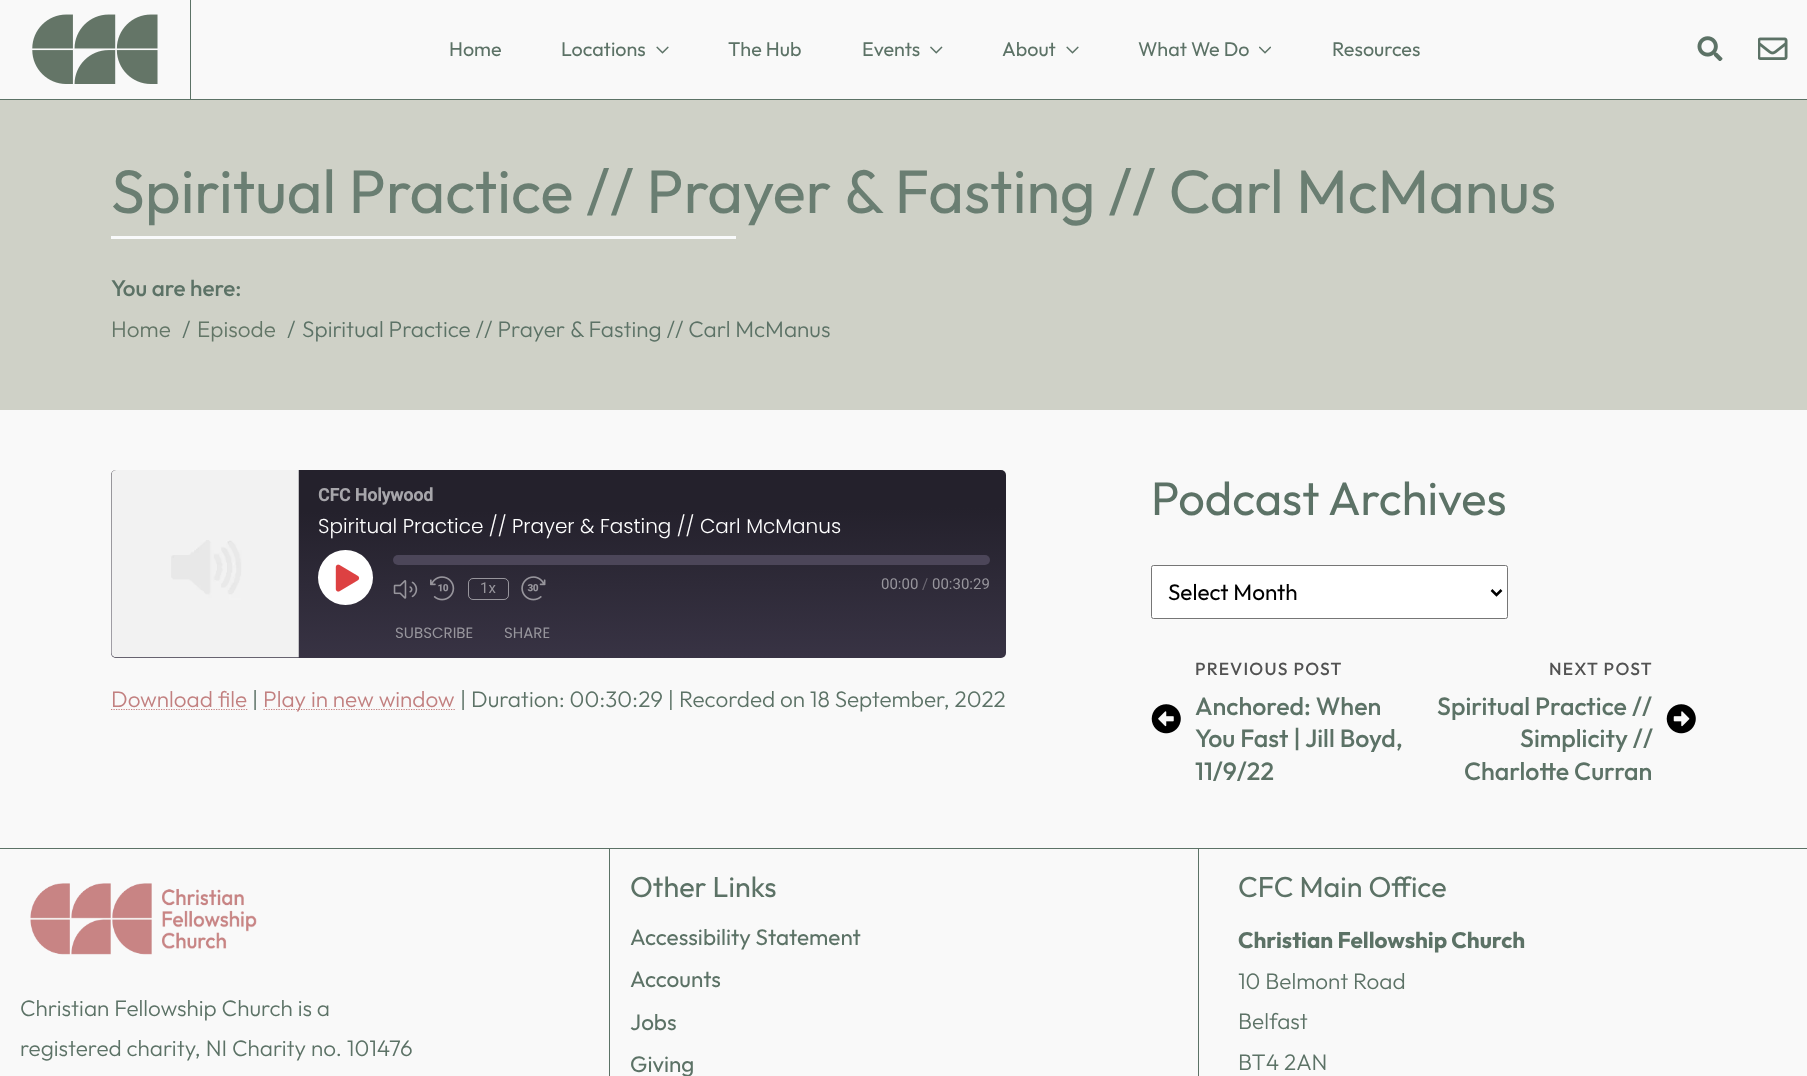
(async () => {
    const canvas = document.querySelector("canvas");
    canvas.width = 1807;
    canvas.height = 1076;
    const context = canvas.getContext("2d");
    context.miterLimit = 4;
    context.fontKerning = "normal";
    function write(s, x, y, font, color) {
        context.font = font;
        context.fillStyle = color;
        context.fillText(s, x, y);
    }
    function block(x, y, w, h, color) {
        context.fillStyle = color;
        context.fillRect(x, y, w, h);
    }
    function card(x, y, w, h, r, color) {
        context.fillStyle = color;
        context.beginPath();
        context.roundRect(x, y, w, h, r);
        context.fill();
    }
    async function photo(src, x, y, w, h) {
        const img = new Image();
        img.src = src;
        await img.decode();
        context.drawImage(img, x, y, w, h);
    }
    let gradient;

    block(0, 0, 1807, 1076, "rgb(249, 249, 249)");
    block(190, 0, 1, 99, "rgb(92, 114, 102)");
    await photo("media/1.png", 32, 14, 126, 70);
    write("Home", 449, 56, "19.75px Outfit", "rgb(92, 114, 102)");
    write("Locations", 561, 56, "19.75px Outfit", "rgb(92, 114, 102)");
    await photo("media/2.png", 656, 46, 13, 8);
    write("The Hub", 728, 56, "19.75px Outfit", "rgb(92, 114, 102)");
    write("Events", 862, 56, "19.75px Outfit", "rgb(92, 114, 102)");
    await photo("media/3.png", 930, 46, 13, 8);
    write("About", 1002, 56, "19.75px Outfit", "rgb(92, 114, 102)");
    await photo("media/2.png", 1066, 46, 13, 8);
    write("What We Do", 1138, 56, "19.75px Outfit", "rgb(92, 114, 102)");
    await photo("media/4.png", 1259, 46, 12, 8);
    write("Resources", 1332, 56, "19.75px Outfit", "rgb(92, 114, 102)");
    await photo("media/5.png", 1697, 36, 26, 25);
    await photo("media/6.png", 1758, 37, 30, 23);
    block(0, 99, 1807, 1, "rgb(92, 114, 102)");
    block(0, 100, 1807, 310, "rgb(207, 209, 199)");
    write("Spiritual Practice // Prayer & Fasting // Carl McManus", 111, 213, "61.25px Outfit", "rgb(106, 126, 114)");
    block(111, 236, 625, 3, "rgb(249, 250, 251)");
    write("You are here:", 111, 296, "500 22.5px Outfit", "rgb(92, 114, 102)");
    write("Home", 111, 337, "300 22.5px Outfit", "rgb(99, 118, 103)");
    write("/", 182, 337, "300 22.5px Outfit", "rgb(92, 114, 102)");
    write("Episode", 197, 337, "300 22.5px Outfit", "rgb(99, 118, 103)");
    write("/", 287, 337, "300 22.5px Outfit", "rgb(92, 114, 102)");
    write("Spiritual Practice // Prayer & Fasting // Carl McManus", 302, 337, "300 22.5px Outfit", "rgb(92, 114, 102)");
    gradient = context.createLinearGradient(559, 660, 558, 468);
    gradient.addColorStop(0.01, "rgb(56, 51, 68)");
    gradient.addColorStop(0.78, "rgb(36, 33, 44)");
    context.fillStyle = gradient;
    context.beginPath();
    context.roundRect(111, 470, 895, 188, 5);
    context.fill();
    await photo("media/7.png", 111, 470, 188, 188);
    write("CFC Holywood", 318, 501, "bold 17.5px Roboto", "rgb(167, 166, 171)");
    write("Spiritual Practice // Prayer & Fasting // Carl McManus", 318, 533, "300 20px Poppins", "rgb(255, 255, 255)");
    context.beginPath();
    context.arc(345.5, 577.5, 27.5, 0, Math.PI * 2);
    context.fill();
    await photo("media/8.png", 335, 564, 25, 28);
    card(393, 555, 597, 10, 5, "rgb(76, 70, 89)");
    await photo("media/9.png", 393, 580, 25, 19);
    await photo("media/10.png", 430, 576, 25, 25);
    context.beginPath();
    context.roundRect(468.5, 578.5, 40, 21, 4.5);
    context.strokeStyle = "rgba(255, 255, 255, 0.5)";
    context.stroke();
    write("1x", 480, 593, "15px Roboto", "rgb(151, 149, 156)");
    await photo("media/11.png", 521, 576, 25, 25);
    write("00:00", 881, 589, "15px Roboto", "rgb(151, 149, 156)");
    write("/", 922, 589, "15px Roboto", "rgb(109, 106, 116)");
    write("00:30:29", 932, 589, "15px Roboto", "rgb(151, 149, 156)");
    write("SUBSCRIBE", 395, 638, "15px Poppins", "rgb(151, 149, 156)");
    write("SHARE", 504, 638, "15px Poppins", "rgb(151, 149, 156)");
    write("Download file", 111, 707, "300 22.5px Outfit", "rgb(194, 128, 128)");
    context.beginPath();
    context.moveTo(111, 709.5);
    context.lineTo(247.5, 709.5);
    context.strokeStyle = "rgb(194, 128, 128)";
    context.lineWidth = 1.2;
    context.setLineDash([1.25, 1.25]);
    context.stroke();
    write("|", 252, 707, "300 22.5px Outfit", "rgb(92, 114, 102)");
    context.beginPath();
    context.moveTo(263.5, 709.5);
    context.lineTo(455, 709.5);
    context.stroke();
    write("Play in new window", 263, 707, "300 22.5px Outfit", "rgb(194, 128, 128)");
    write("| Duration: 00:30:29 | Recorded on 18 September, 2022", 460, 707, "300 22.5px Outfit", "rgb(92, 114, 102)");
    write("Podcast Archives", 1151, 515, "47px Outfit", "rgb(92, 114, 102)");
    context.fillStyle = "rgb(255, 255, 255)";
    context.beginPath();
    context.roundRect(1151.5, 565.5, 356, 53, 2);
    context.fill();
    context.strokeStyle = "rgb(118, 118, 118)";
    context.lineWidth = 1;
    context.setLineDash([]);
    context.stroke();
    context.beginPath();
    context.moveTo(1491.5, 590);
    context.lineTo(1496.5, 595);
    context.lineTo(1501.5, 590);
    context.strokeStyle = "rgb(0, 0, 0)";
    context.lineWidth = 2.5;
    context.stroke();
    write("Select Month", 1168, 600, "22.5px Outfit", "rgb(0, 0, 0)");
    await photo("media/12.png", 1151, 704, 30, 30);
    context.letterSpacing = "1.25px";
    write("PREVIOUS POST", 1195, 675, "500 17.5px Outfit", "rgb(82, 82, 82)");
    context.letterSpacing = "0px";
    write("Anchored: When", 1195, 715, "500 25px Outfit", "rgb(92, 114, 102)");
    write("You Fast | Jill Boyd,", 1195, 747, "500 25px Outfit", "rgb(92, 114, 102)");
    write("11/9/22", 1195, 780, "500 25px Outfit", "rgb(92, 114, 102)");
    context.letterSpacing = "1.25px";
    write("NEXT POST", 1549, 675, "500 17.5px Outfit", "rgb(82, 82, 82)");
    context.letterSpacing = "0px";
    write("Spiritual Practice //", 1437, 715, "500 25px Outfit", "rgb(92, 114, 102)");
    write("Simplicity //", 1520, 747, "500 25px Outfit", "rgb(92, 114, 102)");
    write("Charlotte Curran", 1464, 780, "500 25px Outfit", "rgb(92, 114, 102)");
    await photo("media/13.png", 1666, 704, 30, 30);
    block(0, 848, 1807, 1, "rgb(92, 114, 102)");
    await photo("media/14.png", 30, 883, 227, 72);
    write("Christian Fellowship Church is a", 20, 1016, "300 22.5px Outfit", "rgb(92, 114, 102)");
    write("registered charity, NI Charity no. 101476", 20, 1056, "300 22.5px Outfit", "rgb(92, 114, 102)");
    block(1198, 849, 1, 227, "rgb(92, 114, 102)");
    block(609, 849, 1, 227, "rgb(92, 114, 102)");
    write("Other Links", 630, 897, "28.75px Outfit", "rgb(92, 114, 102)");
    write("Accessibility Statement", 630, 945, "22.5px Outfit", "rgb(92, 114, 102)");
    write("Accounts", 630, 987, "22.5px Outfit", "rgb(92, 114, 102)");
    write("Jobs", 630, 1030, "22.5px Outfit", "rgb(92, 114, 102)");
    write("Giving", 630, 1072, "22.5px Outfit", "rgb(92, 114, 102)");
    write("CFC Main Office", 1238, 897, "28.75px Outfit", "rgb(92, 114, 102)");
    write("Christian Fellowship Church", 1238, 948, "bold 22.5px Outfit", "rgb(92, 114, 102)");
    write("10 Belmont Road", 1238, 989, "300 22.5px Outfit", "rgb(92, 114, 102)");
    write("Belfast", 1238, 1029, "300 22.5px Outfit", "rgb(92, 114, 102)");
    write("BT4 2AN", 1238, 1070, "300 22.5px Outfit", "rgb(92, 114, 102)");
})();
